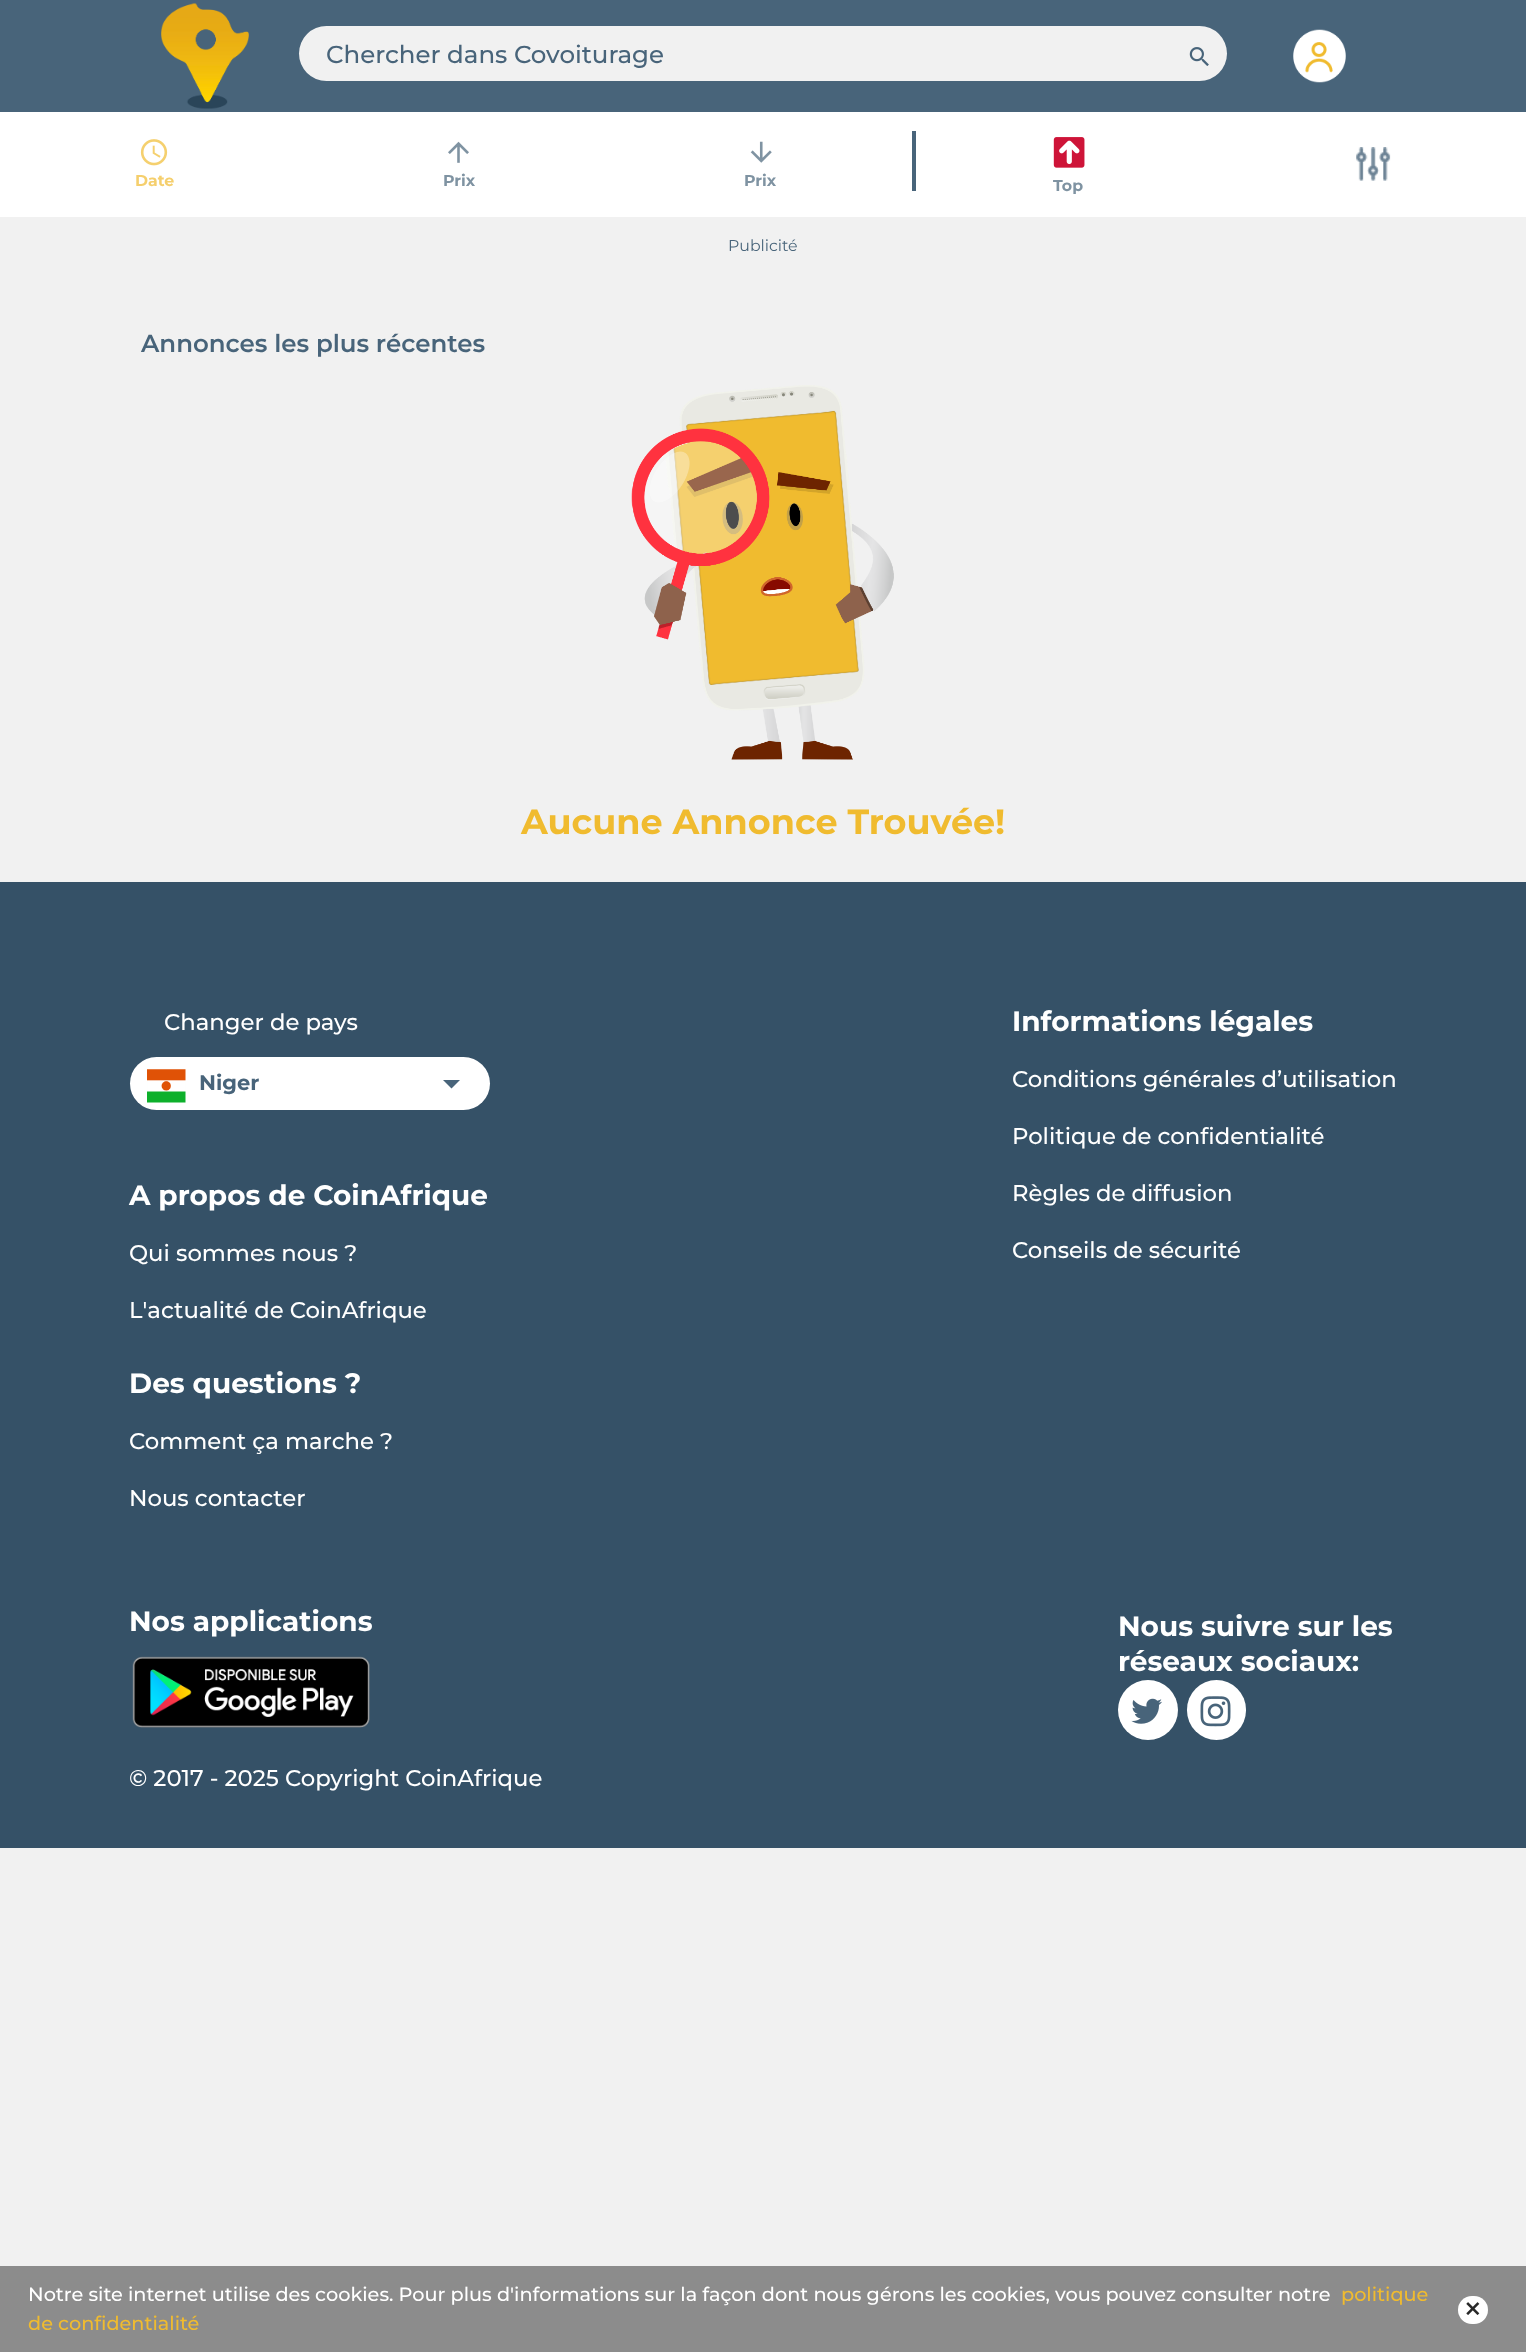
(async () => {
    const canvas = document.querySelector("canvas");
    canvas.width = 1526;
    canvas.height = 2352;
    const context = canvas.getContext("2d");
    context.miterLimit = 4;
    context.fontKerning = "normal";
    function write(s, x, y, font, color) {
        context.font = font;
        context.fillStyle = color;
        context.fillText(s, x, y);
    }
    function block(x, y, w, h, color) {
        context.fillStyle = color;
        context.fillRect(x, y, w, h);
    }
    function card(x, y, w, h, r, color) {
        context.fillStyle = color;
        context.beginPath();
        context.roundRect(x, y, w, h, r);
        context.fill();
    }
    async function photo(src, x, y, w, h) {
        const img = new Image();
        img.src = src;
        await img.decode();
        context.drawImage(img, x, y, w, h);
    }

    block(0, 0, 1526, 2352, "rgb(241, 241, 241)");
    block(0, 0, 1526, 112, "rgb(72, 100, 122)");
    await photo("media/1.png", 161, 3, 88, 106);
    card(299, 26, 928, 55, 27.5, "rgb(241, 241, 241)");
    write("Chercher dans Covoiturage", 326, 63, "500 24.5px Montserrat", "rgb(72, 100, 122)");
    await photo("media/2.png", 1189, 47, 20, 19);
    await photo("media/3.png", 1293, 29, 53, 54);
    block(0, 112, 1526, 105, "rgb(255, 255, 255)");
    await photo("media/4.png", 140, 139, 28, 27);
    write("Date", 135, 186, "bold 15.75px Montserrat", "rgb(245, 207, 109)");
    await photo("media/5.png", 448, 141, 21, 22);
    write("Prix", 443, 186, "bold 15.75px Montserrat", "rgb(127, 147, 162)");
    await photo("media/6.png", 750, 141, 22, 22);
    write("Prix", 744, 186, "bold 15.75px Montserrat", "rgb(127, 147, 162)");
    block(912, 131, 4, 60, "rgb(72, 100, 122)");
    await photo("media/7.png", 1053, 137, 32, 31);
    write("Top", 1053, 191, "bold 15.75px Montserrat", "rgb(127, 147, 162)");
    await photo("media/8.png", 1356, 147, 35, 34);
    write("Publicité", 728, 251, "15.75px Montserrat", "rgb(72, 100, 122)");
    write("Annonces les plus récentes", 141, 352, "600 24.5px Montserrat", "rgb(72, 100, 122)");
    await photo("media/9.png", 631, 385, 263, 375);
    write("Aucune Annonce Trouvée!", 521, 834, "bold 35px Montserrat", "rgb(240, 187, 47)");
    block(0, 882, 1526, 966, "rgb(53, 81, 103)");
    write("Changer de pays", 164, 1030, "500 22.75px Montserrat", "rgb(255, 255, 255)");
    card(130, 1057, 360, 53, 26.5, "rgb(255, 255, 255)");
    await photo("media/10.png", 147, 1069, 39, 34);
    write("Niger", 199, 1090, "bold 21px Montserrat", "rgb(72, 100, 122)");
    context.beginPath();
    context.moveTo(443, 1080);
    context.lineTo(451.5, 1088.5);
    context.lineTo(460, 1080);
    context.closePath();
    context.fill();
    write("A propos de CoinAfrique", 129, 1205, "bold 28px Montserrat", "rgb(255, 255, 255)");
    write("Qui sommes nous ?", 129, 1261, "500 22.75px Montserrat", "rgb(255, 255, 255)");
    write("L'actualité de CoinAfrique", 129, 1318, "500 22.75px Montserrat", "rgb(255, 255, 255)");
    write("Des questions ?", 129, 1393, "bold 28px Montserrat", "rgb(255, 255, 255)");
    write("Comment ça marche ?", 129, 1449, "500 22.75px Montserrat", "rgb(255, 255, 255)");
    write("Nous contacter", 129, 1506, "500 22.75px Montserrat", "rgb(255, 255, 255)");
    write("Informations légales", 1012, 1031, "bold 28px Montserrat", "rgb(255, 255, 255)");
    write("Conditions générales d’utilisation", 1012, 1087, "500 22.75px Montserrat", "rgb(255, 255, 255)");
    write("Politique de confidentialité", 1012, 1144, "500 22.75px Montserrat", "rgb(255, 255, 255)");
    write("Règles de diffusion", 1012, 1201, "500 22.75px Montserrat", "rgb(255, 255, 255)");
    write("Conseils de sécurité", 1012, 1258, "500 22.75px Montserrat", "rgb(255, 255, 255)");
    write("Nos applications", 129, 1631, "bold 28px Montserrat", "rgb(255, 255, 255)");
    await photo("media/11.png", 132, 1656, 238, 72);
    write("Nous suivre sur les", 1118, 1636, "bold 28px Montserrat", "rgb(255, 255, 255)");
    write("réseaux sociaux:", 1118, 1671, "bold 28px Montserrat", "rgb(255, 255, 255)");
    context.beginPath();
    context.arc(1148, 1710, 30, 0, Math.PI * 2);
    context.fill();
    await photo("media/12.png", 1131, 1698, 31, 26);
    card(1187, 1680, 59, 60, 29.5, "rgb(255, 255, 255)");
    await photo("media/13.png", 1200, 1696, 31, 31);
    write("© 2017 - 2025 Copyright CoinAfrique", 129, 1786, "500 22.75px Montserrat", "rgb(255, 255, 255)");
    block(0, 2266, 1526, 86, "rgb(140, 140, 140)");
    write("Notre site internet utilise des cookies. Pour plus d'informations sur la façon dont nous gérons les cookies, vous pouvez consulter notre", 28, 2301, "500 19.25px Montserrat", "rgb(255, 255, 255)");
    write("politique", 1341, 2301, "500 19.25px Montserrat", "rgb(240, 187, 47)");
    write("de confidentialité", 28, 2330, "500 19.25px Montserrat", "rgb(240, 187, 47)");
    card(1458, 2296, 30, 28, 14, "rgb(255, 255, 255)");
    await photo("media/14.png", 1466, 2302, 14, 13);
})();
